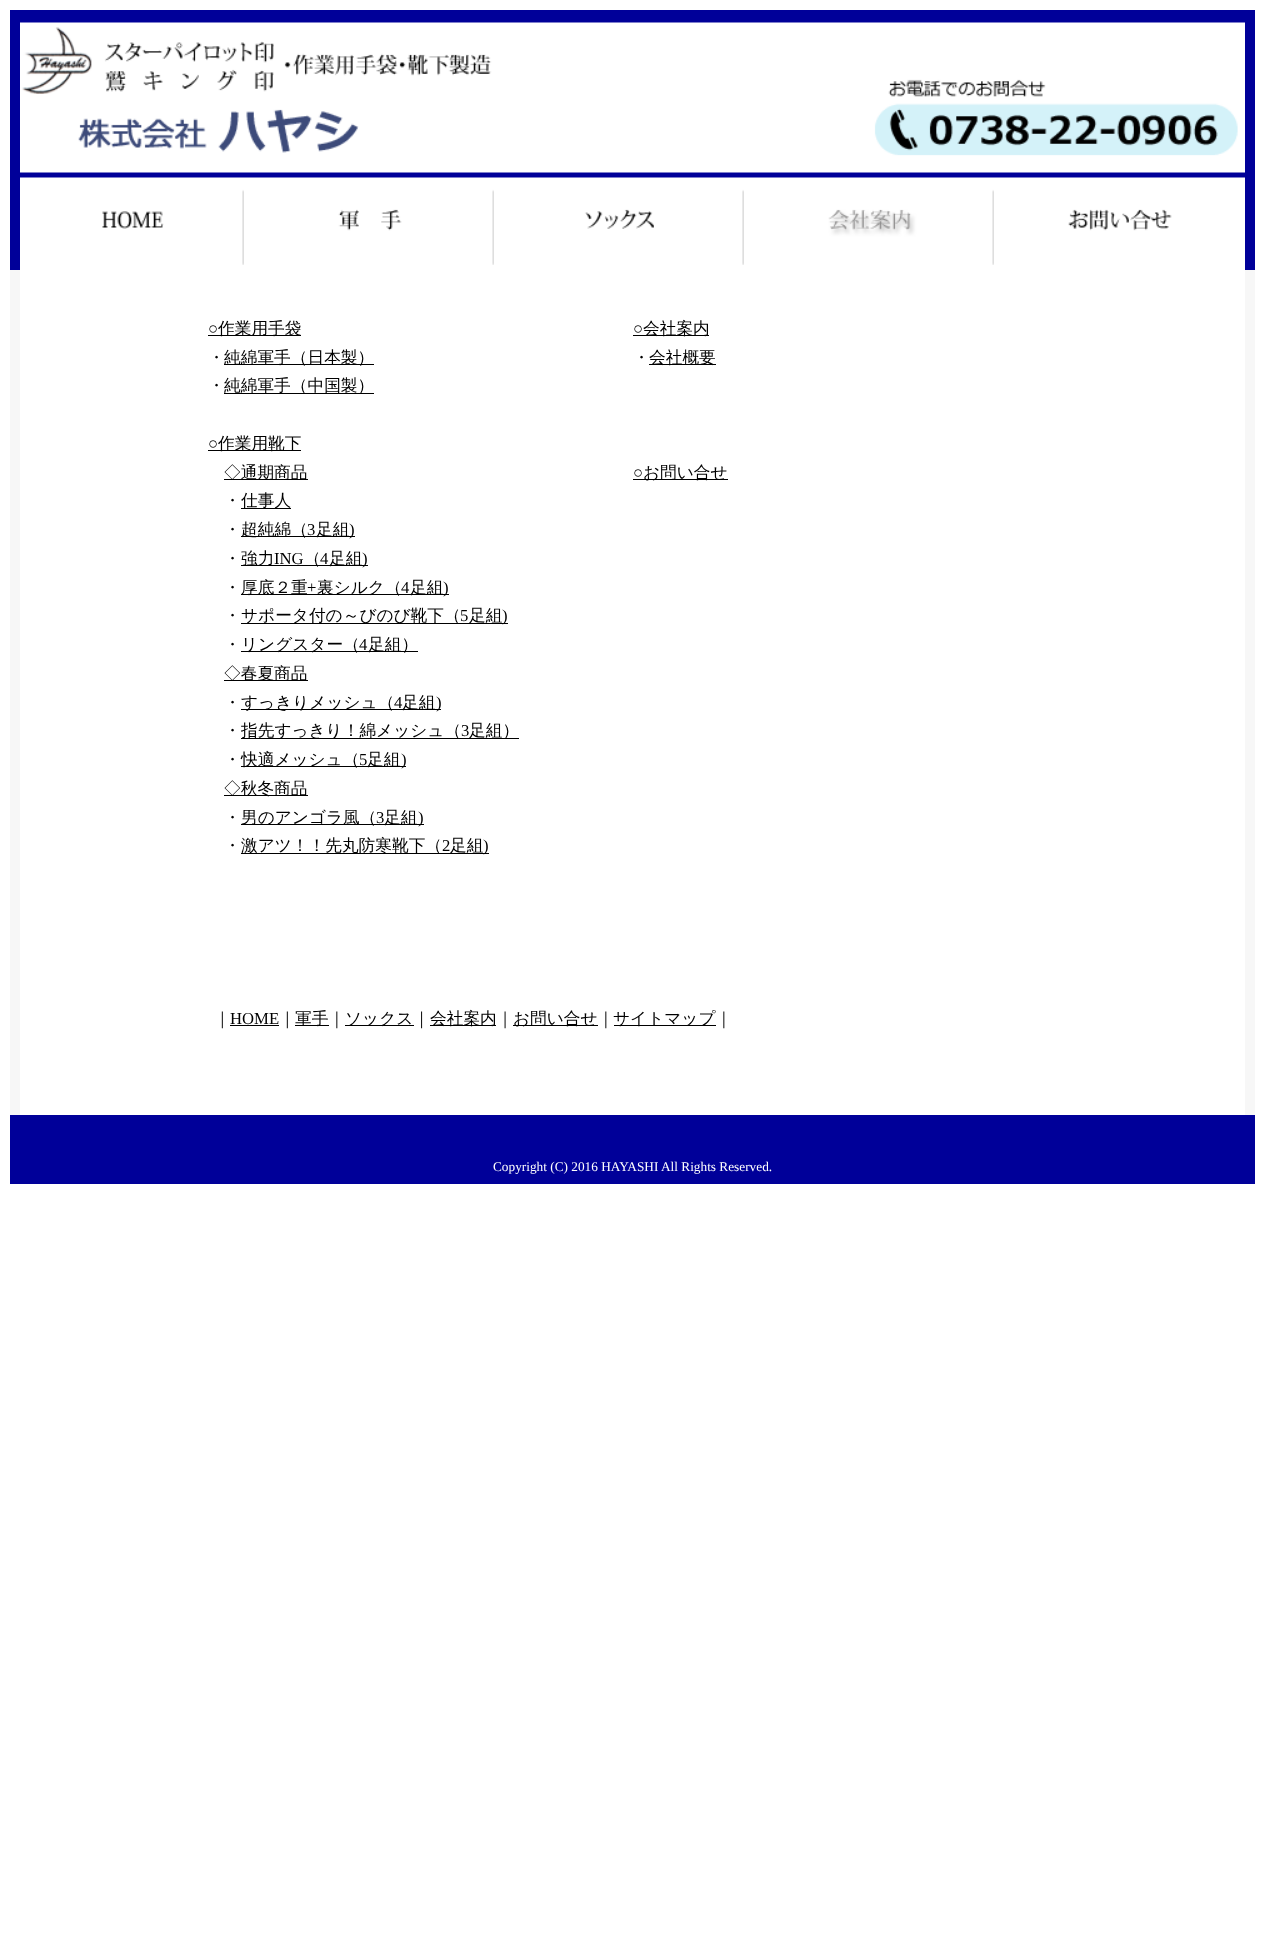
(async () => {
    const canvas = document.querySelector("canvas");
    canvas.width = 1264;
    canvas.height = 1952;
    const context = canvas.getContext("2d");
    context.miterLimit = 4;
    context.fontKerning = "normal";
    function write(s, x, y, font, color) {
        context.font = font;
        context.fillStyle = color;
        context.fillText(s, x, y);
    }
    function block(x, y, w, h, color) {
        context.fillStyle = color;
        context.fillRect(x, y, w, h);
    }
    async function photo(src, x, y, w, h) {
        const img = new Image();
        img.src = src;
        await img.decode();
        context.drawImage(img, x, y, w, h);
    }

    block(0, 0, 1264, 1952, "rgb(255, 255, 255)");
    block(10, 10, 1245, 260, "rgb(0, 0, 153)");
    await photo("media/1.png", 20, 22, 1225, 151);
    block(20, 231, 1225, 39, "rgb(255, 255, 255)");
    await photo("media/2.png", 20, 177, 225, 88);
    await photo("media/3.png", 245, 177, 250, 88);
    await photo("media/4.png", 495, 177, 250, 88);
    await photo("media/5.png", 745, 177, 250, 88);
    await photo("media/6.png", 995, 177, 250, 54);
    block(10, 270, 1245, 845, "rgb(247, 247, 247)");
    block(20, 270, 1225, 845, "rgb(255, 255, 255)");
    write("○", 208, 334, "16.7px Liberation Serif", "rgb(0, 0, 0)");
    block(208, 335, 93, 1, "rgb(0, 0, 0)");
    write("作業用手袋", 218, 334, "500 16.7px WenQuanYi Zen Hei", "rgb(0, 0, 0)");
    write("○", 633, 334, "16.7px Liberation Serif", "rgb(0, 0, 0)");
    block(633, 335, 76, 1, "rgb(0, 0, 0)");
    write("会社案内", 643, 334, "500 16.7px WenQuanYi Zen Hei", "rgb(0, 0, 0)");
    write("・", 208, 363, "500 16.7px WenQuanYi Zen Hei", "rgb(0, 0, 0)");
    block(224, 364, 150, 1, "rgb(0, 0, 0)");
    write("純綿軍手（日本製）", 224, 363, "500 16.7px WenQuanYi Zen Hei", "rgb(0, 0, 0)");
    write("・", 208, 391, "500 16.7px WenQuanYi Zen Hei", "rgb(0, 0, 0)");
    block(224, 393, 150, 1, "rgb(0, 0, 0)");
    write("純綿軍手（中国製）", 224, 391, "500 16.7px WenQuanYi Zen Hei", "rgb(0, 0, 0)");
    write("・", 633, 363, "500 16.7px WenQuanYi Zen Hei", "rgb(0, 0, 0)");
    block(649, 364, 67, 1, "rgb(0, 0, 0)");
    write("会社概要", 649, 363, "500 16.7px WenQuanYi Zen Hei", "rgb(0, 0, 0)");
    write("○", 208, 449, "16.7px Liberation Serif", "rgb(0, 0, 0)");
    block(208, 450, 93, 1, "rgb(0, 0, 0)");
    write("作業用靴下", 218, 449, "500 16.7px WenQuanYi Zen Hei", "rgb(0, 0, 0)");
    block(224, 479, 84, 1, "rgb(0, 0, 0)");
    write("◇通期商品", 224, 478, "500 16.7px WenQuanYi Zen Hei", "rgb(0, 0, 0)");
    write("・", 224, 506, "500 16.7px WenQuanYi Zen Hei", "rgb(0, 0, 0)");
    block(241, 508, 50, 1, "rgb(0, 0, 0)");
    write("仕事人", 241, 506, "500 16.7px WenQuanYi Zen Hei", "rgb(0, 0, 0)");
    write("・", 224, 535, "500 16.7px WenQuanYi Zen Hei", "rgb(0, 0, 0)");
    block(241, 536, 114, 1, "rgb(0, 0, 0)");
    write("超純綿（", 241, 535, "500 16.7px WenQuanYi Zen Hei", "rgb(0, 0, 0)");
    write("3", 307, 535, "16.7px Liberation Serif", "rgb(0, 0, 0)");
    write("足組", 316, 535, "500 16.7px WenQuanYi Zen Hei", "rgb(0, 0, 0)");
    write(")", 349, 535, "16.7px Liberation Serif", "rgb(0, 0, 0)");
    write("・", 224, 564, "500 16.7px WenQuanYi Zen Hei", "rgb(0, 0, 0)");
    block(241, 565, 127, 1, "rgb(0, 0, 0)");
    write("強力", 241, 564, "500 16.7px WenQuanYi Zen Hei", "rgb(0, 0, 0)");
    write("ING", 274, 564, "16.7px Liberation Serif", "rgb(0, 0, 0)");
    write("（", 304, 564, "500 16.7px WenQuanYi Zen Hei", "rgb(0, 0, 0)");
    write("4", 320, 564, "16.7px Liberation Serif", "rgb(0, 0, 0)");
    write("足組", 329, 564, "500 16.7px WenQuanYi Zen Hei", "rgb(0, 0, 0)");
    write(")", 362, 564, "16.7px Liberation Serif", "rgb(0, 0, 0)");
    write("・", 224, 593, "500 16.7px WenQuanYi Zen Hei", "rgb(0, 0, 0)");
    block(241, 594, 208, 1, "rgb(0, 0, 0)");
    write("厚底２重", 241, 593, "500 16.7px WenQuanYi Zen Hei", "rgb(0, 0, 0)");
    write("+", 307, 593, "16.7px Liberation Serif", "rgb(0, 0, 0)");
    write("裏シルク（", 317, 593, "500 16.7px WenQuanYi Zen Hei", "rgb(0, 0, 0)");
    write("4", 401, 593, "16.7px Liberation Serif", "rgb(0, 0, 0)");
    write("足組", 410, 593, "500 16.7px WenQuanYi Zen Hei", "rgb(0, 0, 0)");
    write(")", 443, 593, "16.7px Liberation Serif", "rgb(0, 0, 0)");
    write("・", 224, 621, "500 16.7px WenQuanYi Zen Hei", "rgb(0, 0, 0)");
    block(241, 623, 267, 1, "rgb(0, 0, 0)");
    write("サポータ付の～びのび靴下（", 241, 621, "500 16.7px WenQuanYi Zen Hei", "rgb(0, 0, 0)");
    write("5", 460, 621, "16.7px Liberation Serif", "rgb(0, 0, 0)");
    write("足組", 469, 621, "500 16.7px WenQuanYi Zen Hei", "rgb(0, 0, 0)");
    write(")", 502, 621, "16.7px Liberation Serif", "rgb(0, 0, 0)");
    write("・", 224, 650, "500 16.7px WenQuanYi Zen Hei", "rgb(0, 0, 0)");
    block(241, 651, 177, 1, "rgb(0, 0, 0)");
    write("リングスター（", 241, 650, "500 16.7px WenQuanYi Zen Hei", "rgb(0, 0, 0)");
    write("4", 359, 650, "16.7px Liberation Serif", "rgb(0, 0, 0)");
    write("足組）", 368, 650, "500 16.7px WenQuanYi Zen Hei", "rgb(0, 0, 0)");
    block(224, 680, 84, 1, "rgb(0, 0, 0)");
    write("◇春夏商品", 224, 679, "500 16.7px WenQuanYi Zen Hei", "rgb(0, 0, 0)");
    write("・", 224, 708, "500 16.7px WenQuanYi Zen Hei", "rgb(0, 0, 0)");
    block(241, 709, 200, 1, "rgb(0, 0, 0)");
    write("すっきりメッシュ（", 241, 708, "500 16.7px WenQuanYi Zen Hei", "rgb(0, 0, 0)");
    write("4", 394, 708, "16.7px Liberation Serif", "rgb(0, 0, 0)");
    write("足組", 402, 708, "500 16.7px WenQuanYi Zen Hei", "rgb(0, 0, 0)");
    write(")", 436, 708, "16.7px Liberation Serif", "rgb(0, 0, 0)");
    write("・", 224, 736, "500 16.7px WenQuanYi Zen Hei", "rgb(0, 0, 0)");
    block(241, 738, 278, 1, "rgb(0, 0, 0)");
    write("指先すっきり！綿メッシュ（", 241, 736, "500 16.7px WenQuanYi Zen Hei", "rgb(0, 0, 0)");
    write("3", 461, 736, "16.7px Liberation Serif", "rgb(0, 0, 0)");
    write("足組）", 469, 736, "500 16.7px WenQuanYi Zen Hei", "rgb(0, 0, 0)");
    write("・", 224, 765, "500 16.7px WenQuanYi Zen Hei", "rgb(0, 0, 0)");
    block(241, 766, 165, 1, "rgb(0, 0, 0)");
    write("快適メッシュ（", 241, 765, "500 16.7px WenQuanYi Zen Hei", "rgb(0, 0, 0)");
    write("5", 359, 765, "16.7px Liberation Serif", "rgb(0, 0, 0)");
    write("足組", 367, 765, "500 16.7px WenQuanYi Zen Hei", "rgb(0, 0, 0)");
    write(")", 401, 765, "16.7px Liberation Serif", "rgb(0, 0, 0)");
    block(224, 795, 84, 1, "rgb(0, 0, 0)");
    write("◇秋冬商品", 224, 794, "500 16.7px WenQuanYi Zen Hei", "rgb(0, 0, 0)");
    write("・", 224, 823, "500 16.7px WenQuanYi Zen Hei", "rgb(0, 0, 0)");
    block(241, 824, 183, 1, "rgb(0, 0, 0)");
    write("男のアンゴラ風（", 241, 823, "500 16.7px WenQuanYi Zen Hei", "rgb(0, 0, 0)");
    write("3", 376, 823, "16.7px Liberation Serif", "rgb(0, 0, 0)");
    write("足組", 384, 823, "500 16.7px WenQuanYi Zen Hei", "rgb(0, 0, 0)");
    write(")", 418, 823, "16.7px Liberation Serif", "rgb(0, 0, 0)");
    write("・", 224, 851, "500 16.7px WenQuanYi Zen Hei", "rgb(0, 0, 0)");
    block(241, 853, 248, 1, "rgb(0, 0, 0)");
    write("激アツ！！先丸防寒靴下（", 241, 851, "500 16.7px WenQuanYi Zen Hei", "rgb(0, 0, 0)");
    write("2", 442, 851, "16.7px Liberation Serif", "rgb(0, 0, 0)");
    write("足組", 450, 851, "500 16.7px WenQuanYi Zen Hei", "rgb(0, 0, 0)");
    write(")", 483, 851, "16.7px Liberation Serif", "rgb(0, 0, 0)");
    write("○", 633, 478, "16.7px Liberation Serif", "rgb(0, 0, 0)");
    block(633, 479, 95, 1, "rgb(0, 0, 0)");
    write("お問い合せ", 643, 478, "500 16.7px WenQuanYi Zen Hei", "rgb(0, 0, 0)");
    write("｜", 214, 1024, "500 16.7px WenQuanYi Zen Hei", "rgb(0, 0, 0)");
    write("HOME", 230, 1024, "16.7px Liberation Serif", "rgb(0, 0, 0)");
    block(230, 1025, 49, 1, "rgb(0, 0, 0)");
    write("｜", 279, 1024, "500 16.7px WenQuanYi Zen Hei", "rgb(0, 0, 0)");
    block(295, 1025, 34, 1, "rgb(0, 0, 0)");
    write("軍手｜", 295, 1024, "500 16.7px WenQuanYi Zen Hei", "rgb(0, 0, 0)");
    block(345, 1025, 69, 1, "rgb(0, 0, 0)");
    write("ソックス｜", 345, 1024, "500 16.7px WenQuanYi Zen Hei", "rgb(0, 0, 0)");
    block(430, 1025, 66, 1, "rgb(0, 0, 0)");
    write("会社案内｜", 430, 1024, "500 16.7px WenQuanYi Zen Hei", "rgb(0, 0, 0)");
    block(513, 1025, 85, 1, "rgb(0, 0, 0)");
    write("お問い合せ｜", 513, 1024, "500 16.7px WenQuanYi Zen Hei", "rgb(0, 0, 0)");
    block(614, 1025, 102, 1, "rgb(0, 0, 0)");
    write("サイトマップ｜", 613, 1024, "500 16.7px WenQuanYi Zen Hei", "rgb(0, 0, 0)");
    block(10, 1115, 1245, 69, "rgb(0, 0, 153)");
    write("Copyright (C) 2016 HAYASHI All Rights Reserved.", 493, 1171, "13.3px Liberation Serif", "rgb(255, 255, 255)");
})();
